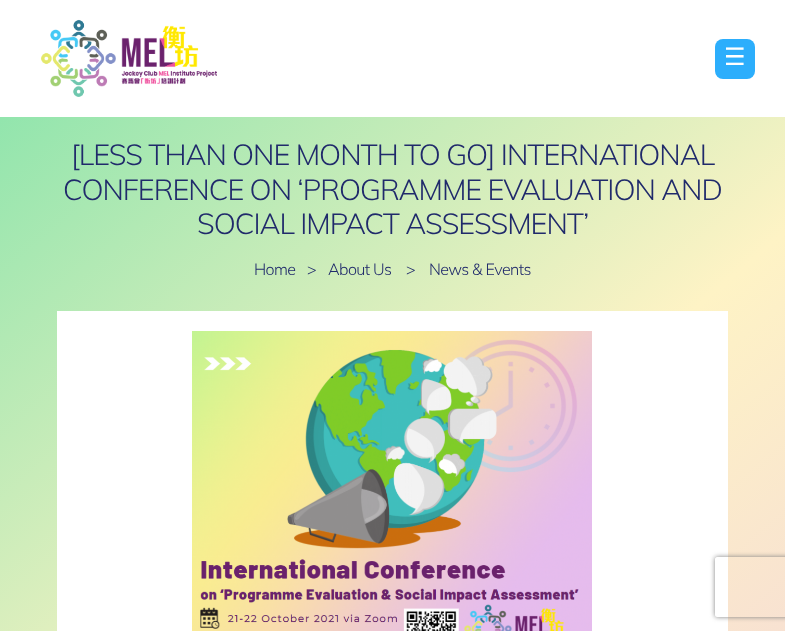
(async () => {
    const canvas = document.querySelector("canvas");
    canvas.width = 785;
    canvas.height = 631;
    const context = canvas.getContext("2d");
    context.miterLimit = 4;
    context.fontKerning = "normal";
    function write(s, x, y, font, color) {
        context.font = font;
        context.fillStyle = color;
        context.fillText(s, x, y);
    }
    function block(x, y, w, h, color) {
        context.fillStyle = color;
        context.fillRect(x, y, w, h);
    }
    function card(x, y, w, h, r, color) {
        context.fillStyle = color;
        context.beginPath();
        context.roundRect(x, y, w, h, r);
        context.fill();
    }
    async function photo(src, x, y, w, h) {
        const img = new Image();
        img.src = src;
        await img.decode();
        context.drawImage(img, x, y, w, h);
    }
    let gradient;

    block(0, 0, 785, 631, "rgb(255, 255, 255)");
    await photo("media/1.png", 41, 19, 176, 78);
    card(715, 39, 40, 40, 8, "rgb(44, 174, 252)");
    write("☰", 724, 65, "24px DejaVu Sans", "rgb(255, 255, 255)");
    gradient = context.createLinearGradient(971, 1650, -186, 273);
    gradient.addColorStop(0, "rgb(190, 171, 249)");
    gradient.addColorStop(0.33, "rgb(242, 208, 222)");
    gradient.addColorStop(0.67, "rgb(254, 243, 197)");
    gradient.addColorStop(1, "rgb(146, 229, 173)");
    context.fillStyle = gradient;
    context.fillRect(0, 117, 785, 514);
    context.letterSpacing = "-1px";
    write("[LESS THAN ONE MONTH TO GO] INTERNATIONAL", 71, 165, "300 28.8px Muli", "rgb(32, 42, 107)");
    write("CONFERENCE ON ‘PROGRAMME EVALUATION AND", 63, 200, "300 28.8px Muli", "rgb(32, 42, 107)");
    write("SOCIAL IMPACT ASSESSMENT’", 197, 234, "300 28.8px Muli", "rgb(32, 42, 107)");
    context.letterSpacing = "-0.6px";
    write("Home", 254, 275, "300 16px Muli", "rgb(32, 42, 107)");
    write(">", 307, 275, "300 16px Muli", "rgb(32, 42, 107)");
    write("About Us", 328, 275, "300 16px Muli", "rgb(32, 42, 107)");
    write(">", 406, 275, "300 16px Muli", "rgb(32, 42, 107)");
    write("News & Events", 429, 275, "300 16px Muli", "rgb(32, 42, 107)");
    block(57, 311, 671, 320, "rgb(255, 255, 255)");
    await photo("media/2.png", 192, 331, 400, 300);
    context.save();
    context.beginPath();
    context.moveTo(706, 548);
    context.lineTo(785, 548);
    context.lineTo(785, 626);
    context.lineTo(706, 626);
    context.closePath();
    context.moveTo(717, 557);
    context.lineTo(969, 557);
    context.bezierCurveTo(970, 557, 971, 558, 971, 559);
    context.lineTo(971, 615);
    context.bezierCurveTo(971, 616, 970, 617, 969, 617);
    context.lineTo(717, 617);
    context.bezierCurveTo(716, 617, 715, 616, 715, 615);
    context.lineTo(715, 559);
    context.bezierCurveTo(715, 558, 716, 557, 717, 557);
    context.closePath();
    context.clip("evenodd");
    context.fillStyle = "rgb(128, 128, 128)";
    context.filter = "blur(2.5px)";
    context.beginPath();
    context.roundRect(715, 557, 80, 60, 2);
    context.fill();
    context.filter = "none";
    context.restore();
})();
